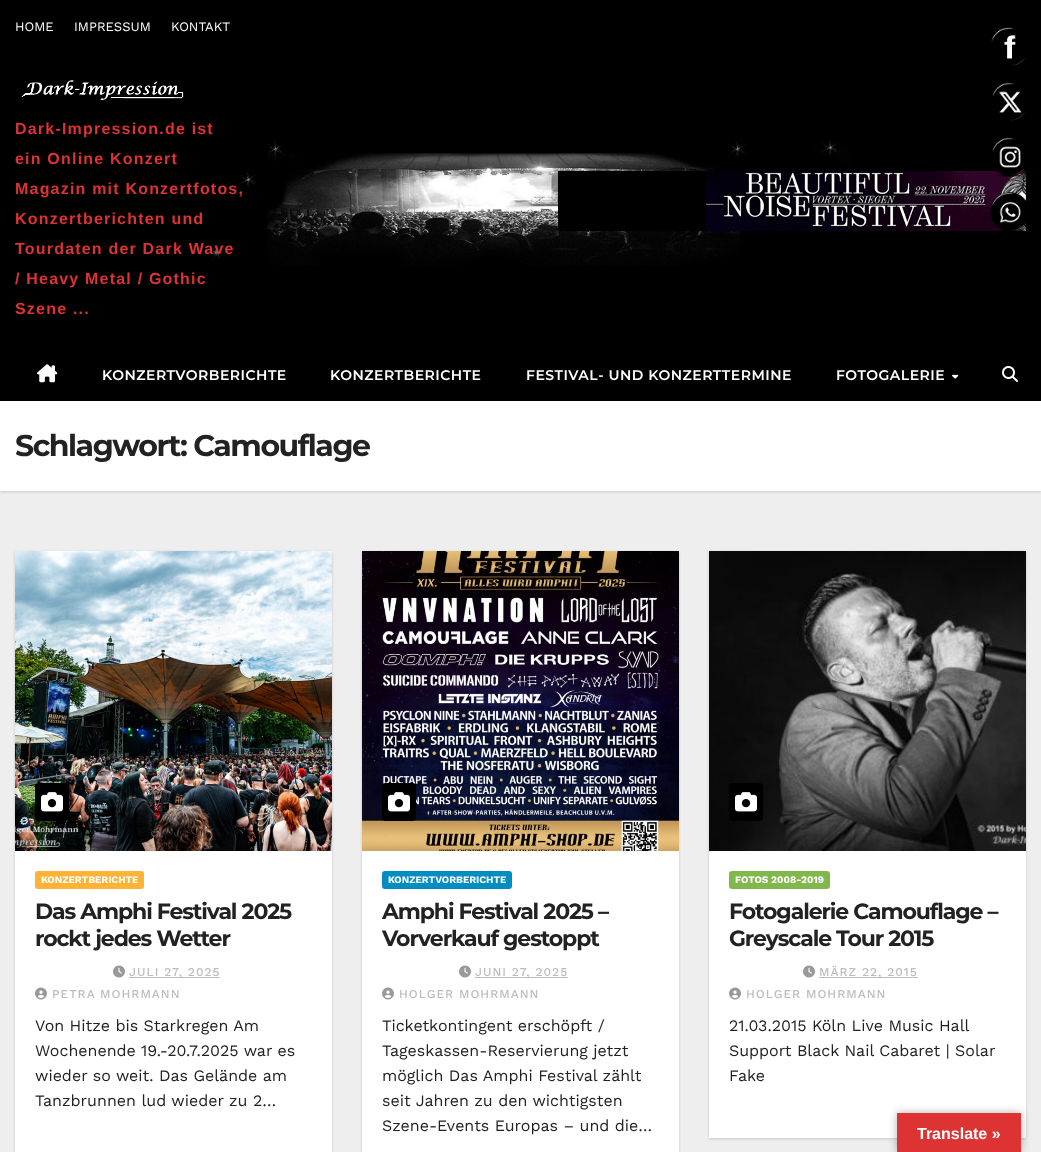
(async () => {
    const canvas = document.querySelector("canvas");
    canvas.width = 1041;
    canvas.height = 1152;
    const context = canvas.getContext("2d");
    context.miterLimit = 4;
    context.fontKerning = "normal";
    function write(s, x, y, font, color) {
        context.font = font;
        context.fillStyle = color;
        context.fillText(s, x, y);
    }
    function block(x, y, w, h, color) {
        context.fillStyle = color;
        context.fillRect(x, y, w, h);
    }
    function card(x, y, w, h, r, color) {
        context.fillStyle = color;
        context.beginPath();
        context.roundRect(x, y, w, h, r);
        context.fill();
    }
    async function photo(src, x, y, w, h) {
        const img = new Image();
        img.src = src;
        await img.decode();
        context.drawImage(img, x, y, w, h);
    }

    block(0, 0, 1041, 1152, "rgb(238, 238, 238)");
    block(0, 0, 1041, 52, "rgb(0, 0, 0)");
    write("HOME", 15, 31, "13px Work Sans", "rgb(255, 255, 255)");
    write("IMPRESSUM", 74, 31, "13px Work Sans", "rgb(255, 255, 255)");
    write("KONTAKT", 171, 31, "13px Work Sans", "rgb(255, 255, 255)");
    await photo("media/1.png", 0, 52, 1041, 297);
    await photo("media/2.png", 21, 80, 163, 20);
    context.letterSpacing = "1.2px";
    write("Dark-Impression.de ist", 15, 134, "bold 16px Liberation Sans", "rgb(221, 51, 51)");
    write("ein Online Konzert", 15, 164, "bold 16px Liberation Sans", "rgb(221, 51, 51)");
    write("Magazin mit Konzertfotos,", 15, 194, "bold 16px Liberation Sans", "rgb(221, 51, 51)");
    write("Konzertberichten und", 15, 224, "bold 16px Liberation Sans", "rgb(221, 51, 51)");
    write("Tourdaten der Dark Wave", 15, 254, "bold 16px Liberation Sans", "rgb(221, 51, 51)");
    write("/ Heavy Metal / Gothic", 15, 284, "bold 16px Liberation Sans", "rgb(221, 51, 51)");
    write("Szene ...", 15, 314, "bold 16px Liberation Sans", "rgb(221, 51, 51)");
    await photo("media/3.png", 558, 171, 468, 60);
    context.fillStyle = "rgba(0, 0, 0, 0.15)";
    context.filter = "blur(1.5px)";
    context.beginPath();
    context.rect(0, 402, 1041, 90);
    context.fill();
    context.filter = "none";
    block(0, 349, 1041, 52, "rgb(0, 0, 0)");
    await photo("media/4.png", 37, 364, 21, 19);
    context.letterSpacing = "0.5px";
    write("KONZERTVORBERICHTE", 102, 380, "600 14px Montserrat", "rgb(255, 255, 255)");
    write("KONZERTBERICHTE", 330, 380, "600 14px Montserrat", "rgb(255, 255, 255)");
    write("FESTIVAL- UND KONZERTTERMINE", 526, 380, "600 14px Montserrat", "rgb(255, 255, 255)");
    write("FOTOGALERIE", 836, 380, "600 14px Montserrat", "rgb(255, 255, 255)");
    await photo("media/5.png", 952, 374, 7, 5);
    await photo("media/6.png", 1002, 366, 16, 16);
    block(0, 401, 1041, 90, "rgb(255, 255, 255)");
    context.letterSpacing = "-1.5px";
    write("Schlagwort: Camouflage", 15, 456, "bold 30px Montserrat", "rgb(34, 34, 34)");
    context.fillStyle = "rgba(0, 0, 0, 0.15)";
    context.filter = "blur(1.5px)";
    context.beginPath();
    context.rect(15, 552, 317, 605);
    context.fill();
    context.filter = "none";
    block(15, 851, 317, 301, "rgb(255, 255, 255)");
    await photo("media/7.png", 15, 551, 317, 300);
    card(35, 783, 34, 38, 4, "rgb(0, 0, 0)");
    await photo("media/8.png", 41, 792, 22, 20);
    card(35, 871, 109, 18, 3, "rgb(254, 178, 54)");
    context.letterSpacing = "0px";
    write("KONZERTBERICHTE", 41, 883, "bold 10px Work Sans", "rgb(255, 255, 255)");
    context.letterSpacing = "-1.1px";
    write("Das Amphi Festival 2025", 35, 919, "bold 22px Montserrat", "rgb(34, 34, 34)");
    write("rockt jedes Wetter", 35, 946, "bold 22px Montserrat", "rgb(34, 34, 34)");
    await photo("media/9.png", 113, 965, 12, 13);
    block(129, 977, 91, 1, "rgb(189, 189, 189)");
    context.letterSpacing = "1px";
    write("JULI 27, 2025", 129, 976, "500 12px Work Sans", "rgb(189, 189, 189)");
    await photo("media/10.png", 35, 987, 12, 13);
    write("PETRA MOHRMANN", 52, 998, "500 12px Work Sans", "rgb(189, 189, 189)");
    context.letterSpacing = "0px";
    write("Von Hitze bis Starkregen Am", 35, 1031, "16px Work Sans", "rgb(34, 34, 34)");
    write("Wochenende 19.-20.7.2025 war es", 35, 1056, "16px Work Sans", "rgb(34, 34, 34)");
    write("wieder so weit. Das Gelände am", 35, 1081, "16px Work Sans", "rgb(34, 34, 34)");
    write("Tanzbrunnen lud wieder zu 2…", 35, 1106, "16px Work Sans", "rgb(34, 34, 34)");
    context.fillStyle = "rgba(0, 0, 0, 0.15)";
    context.filter = "blur(1.5px)";
    context.beginPath();
    context.rect(362, 552, 317, 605);
    context.fill();
    context.filter = "none";
    block(362, 851, 317, 301, "rgb(255, 255, 255)");
    await photo("media/11.png", 362, 551, 317, 300);
    card(382, 783, 34, 38, 4, "rgb(0, 0, 0)");
    await photo("media/8.png", 388, 792, 22, 20);
    card(382, 871, 130, 18, 3, "rgb(0, 142, 194)");
    write("KONZERTVORBERICHTE", 388, 883, "bold 10px Work Sans", "rgb(255, 255, 255)");
    context.letterSpacing = "-1.1px";
    write("Amphi Festival 2025 –", 382, 919, "bold 22px Montserrat", "rgb(34, 34, 34)");
    write("Vorverkauf gestoppt", 382, 946, "bold 22px Montserrat", "rgb(34, 34, 34)");
    await photo("media/9.png", 459, 965, 12, 13);
    block(475, 977, 93, 1, "rgb(189, 189, 189)");
    context.letterSpacing = "1px";
    write("JUNI 27, 2025", 475, 976, "500 12px Work Sans", "rgb(189, 189, 189)");
    await photo("media/10.png", 382, 987, 12, 13);
    write("HOLGER MOHRMANN", 399, 998, "500 12px Work Sans", "rgb(189, 189, 189)");
    context.letterSpacing = "0px";
    write("Ticketkontingent erschöpft /", 382, 1031, "16px Work Sans", "rgb(34, 34, 34)");
    write("Tageskassen-Reservierung jetzt", 382, 1056, "16px Work Sans", "rgb(34, 34, 34)");
    write("möglich Das Amphi Festival zählt", 382, 1081, "16px Work Sans", "rgb(34, 34, 34)");
    write("seit Jahren zu den wichtigsten", 382, 1106, "16px Work Sans", "rgb(34, 34, 34)");
    write("Szene-Events Europas – und die…", 382, 1131, "16px Work Sans", "rgb(34, 34, 34)");
    context.fillStyle = "rgba(0, 0, 0, 0.15)";
    context.filter = "blur(1.5px)";
    context.beginPath();
    context.rect(709, 552, 317, 587);
    context.fill();
    context.filter = "none";
    block(709, 851, 317, 287, "rgb(255, 255, 255)");
    await photo("media/12.png", 709, 551, 317, 300);
    card(729, 783, 34, 38, 4, "rgb(0, 0, 0)");
    await photo("media/8.png", 735, 792, 22, 20);
    card(729, 871, 101, 18, 3, "rgb(130, 183, 75)");
    write("FOTOS 2008-2019", 735, 883, "bold 10px Work Sans", "rgb(255, 255, 255)");
    context.letterSpacing = "-1.1px";
    write("Fotogalerie Camouflage –", 729, 919, "bold 22px Montserrat", "rgb(34, 34, 34)");
    write("Greyscale Tour 2015", 729, 946, "bold 22px Montserrat", "rgb(34, 34, 34)");
    await photo("media/9.png", 803, 965, 12, 13);
    block(819, 977, 99, 1, "rgb(189, 189, 189)");
    context.letterSpacing = "1px";
    write("MÄRZ 22, 2015", 819, 976, "500 12px Work Sans", "rgb(189, 189, 189)");
    await photo("media/10.png", 729, 987, 12, 13);
    write("HOLGER MOHRMANN", 746, 998, "500 12px Work Sans", "rgb(189, 189, 189)");
    context.letterSpacing = "0px";
    write("21.03.2015 Köln Live Music Hall", 729, 1031, "16px Work Sans", "rgb(34, 34, 34)");
    write("Support Black Nail Cabaret | Solar", 729, 1056, "16px Work Sans", "rgb(34, 34, 34)");
    write("Fake", 729, 1081, "16px Work Sans", "rgb(34, 34, 34)");
    await photo("media/13.png", 991, 27, 35, 39);
    await photo("media/14.png", 992, 82, 33, 39);
    await photo("media/15.png", 992, 137, 33, 40);
    await photo("media/16.png", 990, 192, 36, 39);
    context.fillStyle = "rgba(0, 0, 0, 0.3)";
    context.filter = "blur(4.5px)";
    context.beginPath();
    context.rect(897, 1113, 124, 39);
    context.fill();
    context.filter = "none";
    block(897, 1113, 124, 39, "rgb(221, 51, 51)");
    write("Translate »", 917, 1139, "bold 16px Liberation Sans", "rgb(255, 255, 255)");
})();
